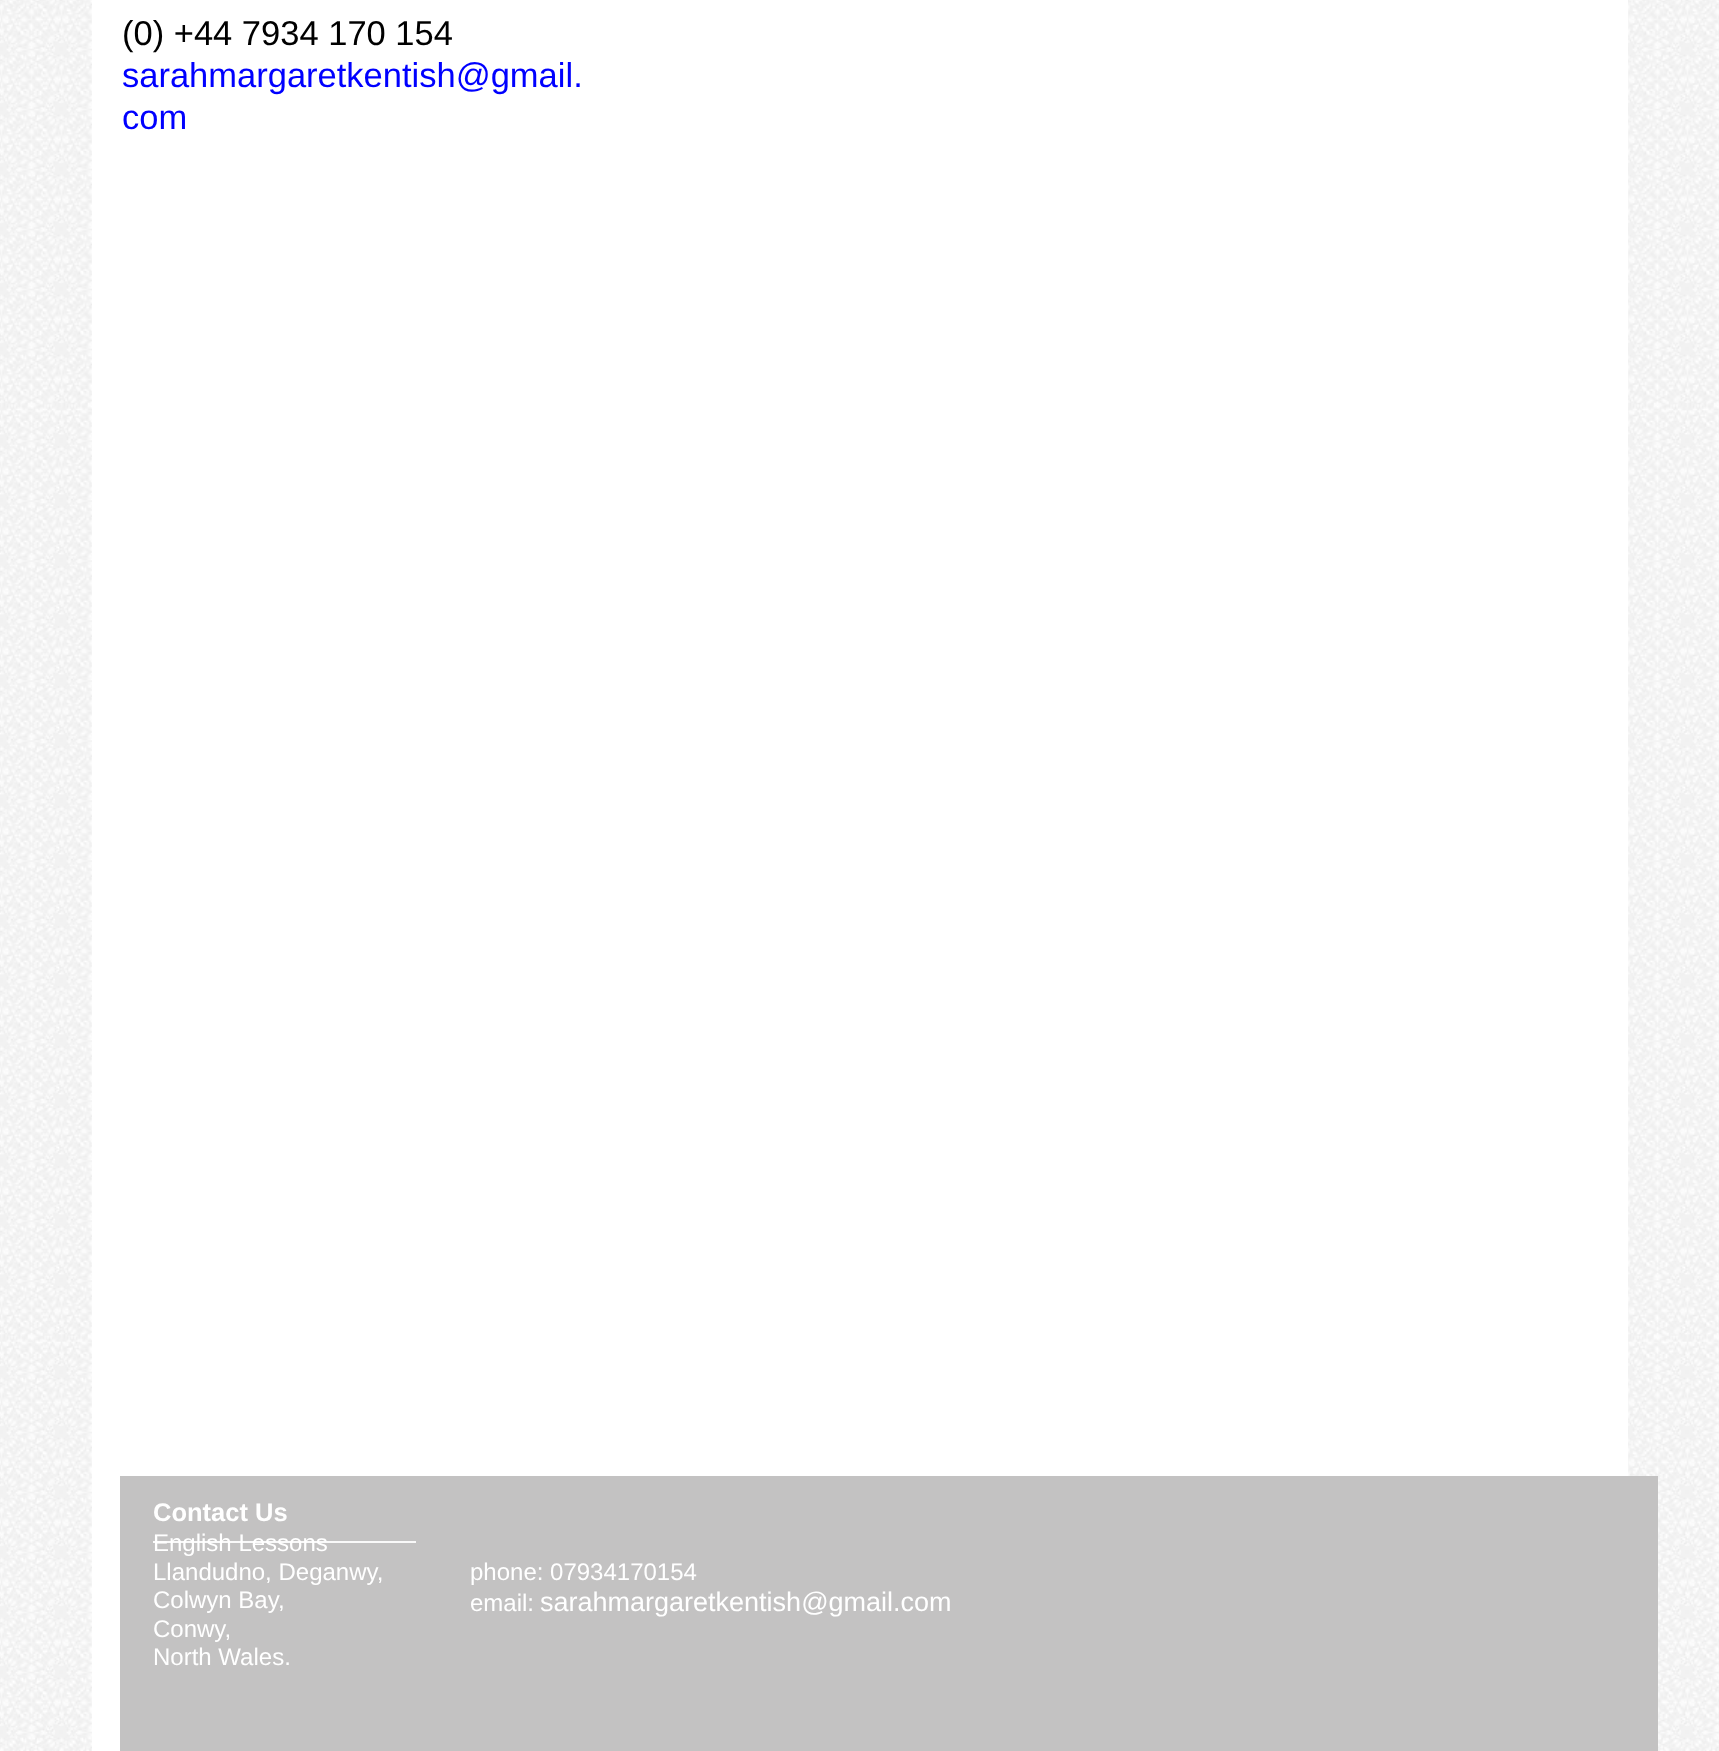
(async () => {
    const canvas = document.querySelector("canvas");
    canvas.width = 1719;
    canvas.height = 1751;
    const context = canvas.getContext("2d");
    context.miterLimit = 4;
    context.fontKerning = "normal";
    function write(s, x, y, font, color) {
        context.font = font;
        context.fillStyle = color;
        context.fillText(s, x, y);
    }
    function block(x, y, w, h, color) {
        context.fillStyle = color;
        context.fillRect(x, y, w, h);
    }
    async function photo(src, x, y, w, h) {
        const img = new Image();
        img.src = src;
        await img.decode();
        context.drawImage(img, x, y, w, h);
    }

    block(0, 0, 1719, 1751, "rgb(255, 255, 255)");
    await photo("media/1.png", 0, 0, 1719, 1751);
    block(92, 0, 1536, 1751, "rgb(255, 255, 255)");
    write("(0) +44 7934 170 154", 122, 45, "34.5px Liberation Sans", "rgb(0, 0, 0)");
    write("sarahmargaretkentish@gmail.", 122, 87, "34.5px Liberation Sans", "rgb(0, 0, 255)");
    write("com", 122, 129, "34.5px Liberation Sans", "rgb(0, 0, 255)");
    block(120, 1476, 1538, 275, "rgb(195, 194, 194)");
    write("Contact Us", 153, 1521, "bold 25.5px Liberation Sans", "rgb(255, 255, 255)");
    write("English Lessons", 153, 1551, "24px Liberation Sans", "rgb(255, 255, 255)");
    write("Llandudno, Deganwy,", 153, 1580, "24px Liberation Sans", "rgb(255, 255, 255)");
    write("Colwyn Bay,", 153, 1608, "24px Liberation Sans", "rgb(255, 255, 255)");
    write("Conwy,", 153, 1637, "24px Liberation Sans", "rgb(255, 255, 255)");
    write("North Wales.", 153, 1665, "24px Liberation Sans", "rgb(255, 255, 255)");
    block(153, 1541, 263, 2, "rgba(255, 255, 255, 0.9)");
    write("phone: 07934170154", 470, 1580, "24px Liberation Sans", "rgb(255, 255, 255)");
    write("email:", 470, 1611, "24px Liberation Sans", "rgb(255, 255, 255)");
    write("sarahmargaretkentish@gmail.com", 540, 1611, "27px Liberation Sans", "rgb(255, 255, 255)");
})();
